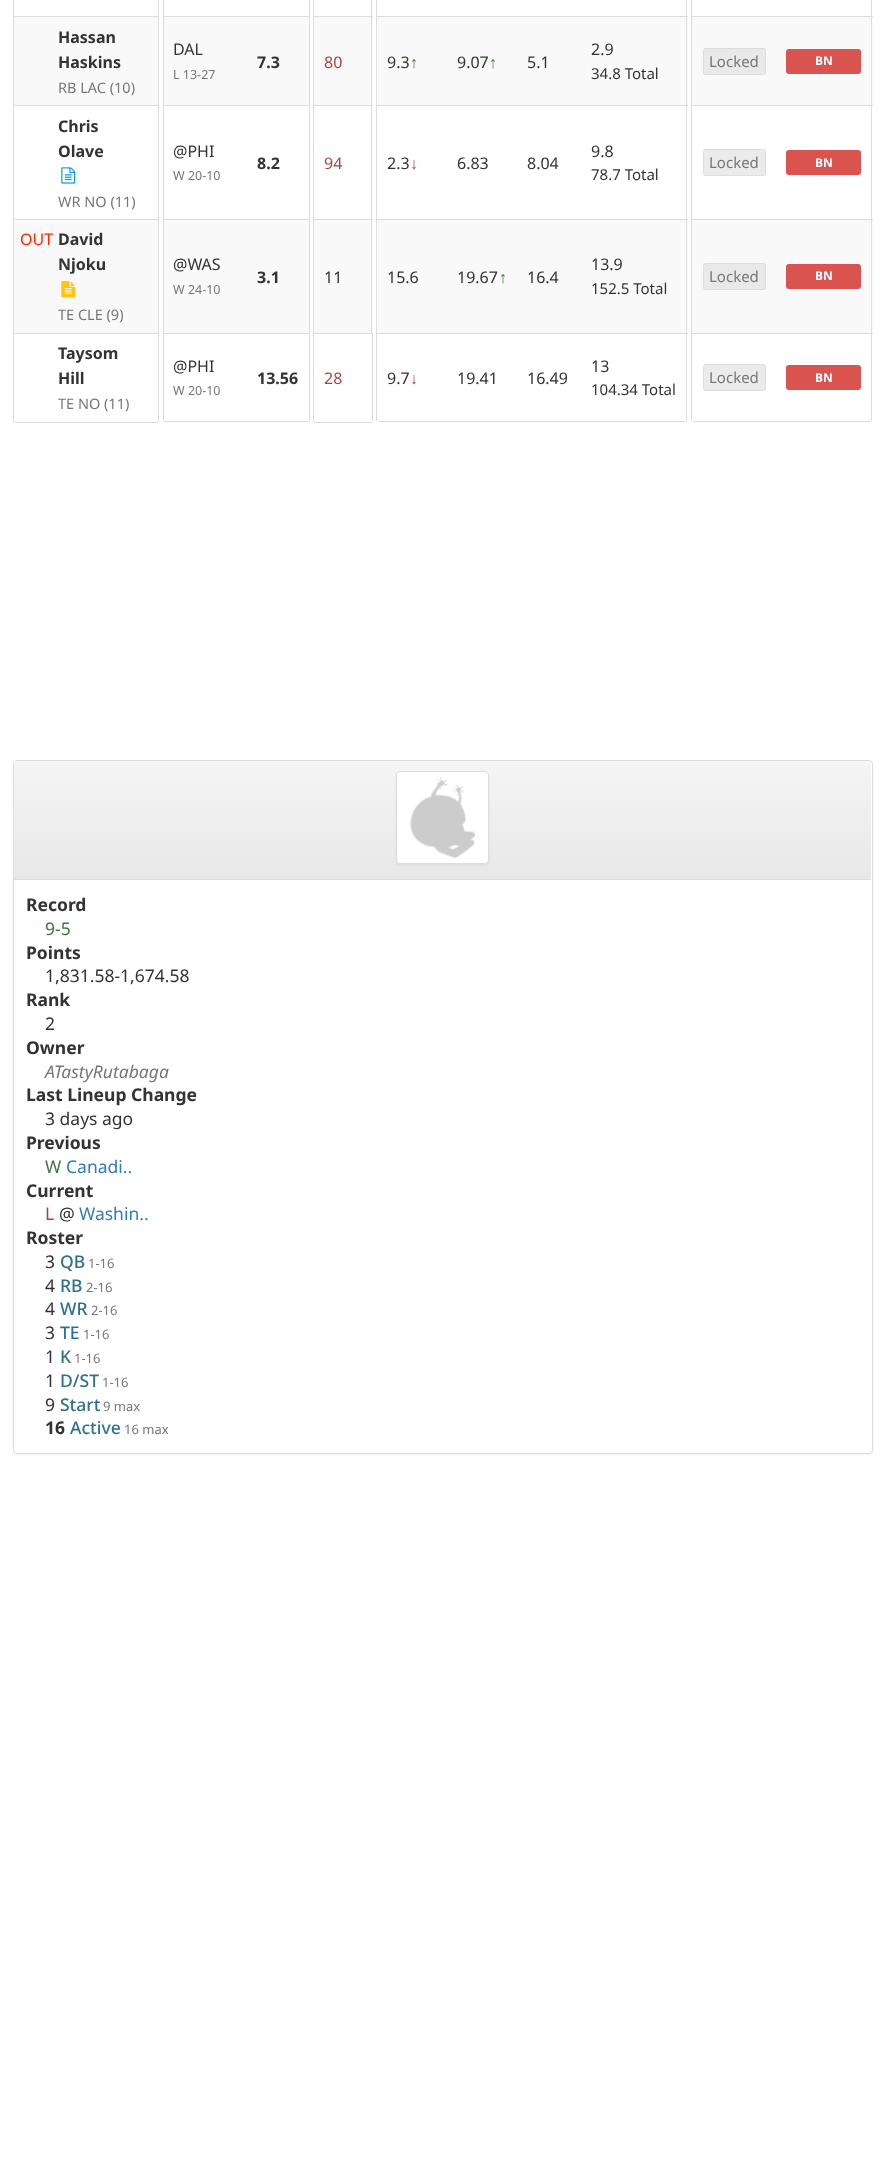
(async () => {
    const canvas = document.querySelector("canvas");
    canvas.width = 885;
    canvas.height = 2159;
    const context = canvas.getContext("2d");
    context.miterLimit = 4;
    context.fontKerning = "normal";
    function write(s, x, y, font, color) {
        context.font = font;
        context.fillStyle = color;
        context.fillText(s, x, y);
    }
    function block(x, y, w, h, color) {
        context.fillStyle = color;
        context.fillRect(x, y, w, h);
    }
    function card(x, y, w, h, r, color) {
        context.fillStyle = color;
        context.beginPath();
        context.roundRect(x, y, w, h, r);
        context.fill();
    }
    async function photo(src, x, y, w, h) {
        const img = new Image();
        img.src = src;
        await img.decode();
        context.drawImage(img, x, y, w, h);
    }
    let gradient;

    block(0, 0, 885, 2159, "rgb(255, 255, 255)");
    block(158, 0, 1, 16, "rgb(221, 221, 221)");
    block(13, 0, 1, 16, "rgb(221, 221, 221)");
    block(163, 0, 1, 16, "rgb(221, 221, 221)");
    block(309, 0, 1, 16, "rgb(221, 221, 221)");
    block(371, 0, 1, 16, "rgb(221, 221, 221)");
    block(313, 0, 1, 16, "rgb(221, 221, 221)");
    block(376, 0, 1, 16, "rgb(221, 221, 221)");
    block(686, 0, 1, 16, "rgb(221, 221, 221)");
    block(691, 0, 1, 16, "rgb(221, 221, 221)");
    block(871, 0, 1, 16, "rgb(221, 221, 221)");
    block(14, 17, 859, 88, "rgb(249, 249, 249)");
    block(13, 16, 146, 1, "rgb(221, 221, 221)");
    block(158, 16, 1, 89, "rgb(221, 221, 221)");
    block(13, 16, 1, 89, "rgb(221, 221, 221)");
    write("Hassan", 58, 43, "bold 16px Noto Sans", "rgb(51, 51, 51)");
    write("Haskins", 58, 68, "bold 16px Noto Sans", "rgb(51, 51, 51)");
    write("RB LAC (10)", 58, 93, "14.5px Noto Sans", "rgb(119, 119, 119)");
    block(159, 16, 4, 89, "rgb(255, 255, 255)");
    block(163, 16, 147, 1, "rgb(221, 221, 221)");
    block(163, 16, 1, 89, "rgb(221, 221, 221)");
    write("DAL", 173, 55, "16px Noto Sans", "rgb(51, 51, 51)");
    write("L 13-27", 173, 79, "12.5px Noto Sans", "rgb(119, 119, 119)");
    block(309, 16, 1, 89, "rgb(221, 221, 221)");
    write("7.3", 257, 68, "bold 16px Noto Sans", "rgb(51, 51, 51)");
    block(310, 16, 3, 89, "rgb(255, 255, 255)");
    block(313, 16, 60, 1, "rgb(221, 221, 221)");
    block(371, 16, 1, 89, "rgb(221, 221, 221)");
    block(313, 16, 1, 89, "rgb(221, 221, 221)");
    write("80", 324, 68, "16px Noto Sans", "rgb(169, 68, 66)");
    block(373, 16, 3, 89, "rgb(255, 255, 255)");
    block(376, 16, 312, 1, "rgb(221, 221, 221)");
    block(376, 16, 1, 89, "rgb(221, 221, 221)");
    write("9.3", 387, 68, "16px Noto Sans", "rgb(51, 51, 51)");
    write("↑", 410, 68, "16px Liberation Sans", "rgb(60, 118, 61)");
    write("9.07", 457, 68, "16px Noto Sans", "rgb(51, 51, 51)");
    write("↑", 489, 68, "16px Liberation Sans", "rgb(60, 118, 61)");
    write("5.1", 527, 68, "16px Noto Sans", "rgb(51, 51, 51)");
    block(686, 16, 1, 89, "rgb(221, 221, 221)");
    write("2.9", 591, 55, "16px Noto Sans", "rgb(51, 51, 51)");
    write("34.8 Total", 591, 79, "15px Noto Sans", "rgb(51, 51, 51)");
    block(688, 16, 3, 89, "rgb(255, 255, 255)");
    block(691, 16, 182, 1, "rgb(221, 221, 221)");
    block(691, 16, 1, 89, "rgb(221, 221, 221)");
    context.fillStyle = "rgb(233, 233, 233)";
    context.beginPath();
    context.roundRect(703.5, 48.5, 62, 26, 2);
    context.fill();
    context.strokeStyle = "rgb(220, 220, 220)";
    context.stroke();
    write("Locked", 709, 67, "15px Noto Sans", "rgb(119, 119, 119)");
    block(871, 16, 1, 89, "rgb(221, 221, 221)");
    card(786, 49, 75, 25, 3, "rgb(217, 83, 79)");
    write("BN", 815, 65, "bold 12px Noto Sans", "rgb(255, 255, 255)");
    block(13, 105, 146, 1, "rgb(221, 221, 221)");
    block(158, 105, 1, 114, "rgb(221, 221, 221)");
    block(13, 105, 1, 114, "rgb(221, 221, 221)");
    write("Chris", 58, 132, "bold 16px Noto Sans", "rgb(51, 51, 51)");
    write("Olave", 58, 157, "bold 16px Noto Sans", "rgb(51, 51, 51)");
    await photo("media/1.png", 61, 167, 15, 17);
    write("WR NO (11)", 58, 207, "14.5px Noto Sans", "rgb(119, 119, 119)");
    block(163, 105, 147, 1, "rgb(221, 221, 221)");
    block(163, 105, 1, 114, "rgb(221, 221, 221)");
    write("@PHI", 173, 157, "16px Noto Sans", "rgb(51, 51, 51)");
    write("W 20-10", 173, 180, "12.5px Noto Sans", "rgb(119, 119, 119)");
    block(309, 105, 1, 114, "rgb(221, 221, 221)");
    write("8.2", 257, 169, "bold 16px Noto Sans", "rgb(51, 51, 51)");
    block(313, 105, 60, 1, "rgb(221, 221, 221)");
    block(371, 105, 1, 114, "rgb(221, 221, 221)");
    block(313, 105, 1, 114, "rgb(221, 221, 221)");
    write("94", 324, 169, "16px Noto Sans", "rgb(169, 68, 66)");
    block(376, 105, 312, 1, "rgb(221, 221, 221)");
    block(376, 105, 1, 114, "rgb(221, 221, 221)");
    write("2.3", 387, 169, "16px Noto Sans", "rgb(51, 51, 51)");
    write("↓", 410, 169, "16px Liberation Sans", "rgb(169, 68, 66)");
    write("6.83", 457, 169, "16px Noto Sans", "rgb(51, 51, 51)");
    write("8.04", 527, 169, "16px Noto Sans", "rgb(51, 51, 51)");
    block(686, 105, 1, 114, "rgb(221, 221, 221)");
    write("9.8", 591, 157, "16px Noto Sans", "rgb(51, 51, 51)");
    write("78.7 Total", 591, 180, "15px Noto Sans", "rgb(51, 51, 51)");
    block(691, 105, 182, 1, "rgb(221, 221, 221)");
    block(691, 105, 1, 114, "rgb(221, 221, 221)");
    context.fillStyle = "rgb(235, 235, 235)";
    context.beginPath();
    context.roundRect(703.5, 149.5, 62, 26, 2);
    context.fill();
    context.strokeStyle = "rgb(222, 222, 222)";
    context.stroke();
    write("Locked", 709, 168, "15px Noto Sans", "rgb(119, 119, 119)");
    block(871, 105, 1, 114, "rgb(221, 221, 221)");
    card(786, 150, 75, 25, 3, "rgb(217, 83, 79)");
    write("BN", 815, 167, "bold 12px Noto Sans", "rgb(255, 255, 255)");
    block(14, 220, 859, 113, "rgb(249, 249, 249)");
    block(13, 219, 146, 1, "rgb(221, 221, 221)");
    block(158, 219, 1, 114, "rgb(221, 221, 221)");
    block(13, 219, 1, 114, "rgb(221, 221, 221)");
    write("OUT", 20, 245, "16px Noto Sans", "rgb(255, 38, 0)");
    write("David", 58, 245, "bold 16px Noto Sans", "rgb(51, 51, 51)");
    write("Njoku", 58, 270, "bold 16px Noto Sans", "rgb(51, 51, 51)");
    await photo("media/2.png", 61, 281, 15, 17);
    write("TE CLE (9)", 58, 320, "14.5px Noto Sans", "rgb(119, 119, 119)");
    block(159, 219, 4, 114, "rgb(255, 255, 255)");
    block(163, 219, 147, 1, "rgb(221, 221, 221)");
    block(163, 219, 1, 114, "rgb(221, 221, 221)");
    write("@WAS", 173, 270, "16px Noto Sans", "rgb(51, 51, 51)");
    write("W 24-10", 173, 294, "12.5px Noto Sans", "rgb(119, 119, 119)");
    block(309, 219, 1, 114, "rgb(221, 221, 221)");
    write("3.1", 257, 283, "bold 16px Noto Sans", "rgb(51, 51, 51)");
    block(310, 219, 3, 114, "rgb(255, 255, 255)");
    block(313, 219, 60, 1, "rgb(221, 221, 221)");
    block(371, 219, 1, 114, "rgb(221, 221, 221)");
    block(313, 219, 1, 114, "rgb(221, 221, 221)");
    write("11", 324, 283, "16px Noto Sans", "rgb(51, 51, 51)");
    block(373, 219, 3, 114, "rgb(255, 255, 255)");
    block(376, 219, 312, 1, "rgb(221, 221, 221)");
    block(376, 219, 1, 114, "rgb(221, 221, 221)");
    write("15.6", 387, 283, "16px Noto Sans", "rgb(51, 51, 51)");
    write("19.67", 457, 283, "16px Noto Sans", "rgb(51, 51, 51)");
    write("↑", 499, 283, "16px Liberation Sans", "rgb(60, 118, 61)");
    write("16.4", 527, 283, "16px Noto Sans", "rgb(51, 51, 51)");
    block(686, 219, 1, 114, "rgb(221, 221, 221)");
    write("13.9", 591, 270, "16px Noto Sans", "rgb(51, 51, 51)");
    write("152.5 Total", 591, 294, "15px Noto Sans", "rgb(51, 51, 51)");
    block(688, 219, 3, 114, "rgb(255, 255, 255)");
    block(691, 219, 182, 1, "rgb(221, 221, 221)");
    block(691, 219, 1, 114, "rgb(221, 221, 221)");
    context.fillStyle = "rgb(233, 233, 233)";
    context.beginPath();
    context.roundRect(703.5, 263.5, 62, 26, 2);
    context.fill();
    context.strokeStyle = "rgb(220, 220, 220)";
    context.stroke();
    write("Locked", 709, 282, "15px Noto Sans", "rgb(119, 119, 119)");
    block(871, 219, 1, 114, "rgb(221, 221, 221)");
    card(786, 264, 75, 25, 3, "rgb(217, 83, 79)");
    write("BN", 815, 280, "bold 12px Noto Sans", "rgb(255, 255, 255)");
    context.beginPath();
    context.roundRect(13.5, 333.5, 145, 89, [0, 0, 2, 2]);
    context.strokeStyle = "rgb(221, 221, 221)";
    context.stroke();
    write("Taysom", 58, 359, "bold 16px Noto Sans", "rgb(51, 51, 51)");
    write("Hill", 58, 384, "bold 16px Noto Sans", "rgb(51, 51, 51)");
    write("TE NO (11)", 58, 409, "14.5px Noto Sans", "rgb(119, 119, 119)");
    block(163, 333, 147, 1, "rgb(221, 221, 221)");
    block(164, 421, 145, 1, "rgb(221, 221, 221)");
    block(163, 333, 1, 88, "rgb(221, 221, 221)");
    write("@PHI", 173, 372, "16px Noto Sans", "rgb(51, 51, 51)");
    write("W 20-10", 173, 395, "12.5px Noto Sans", "rgb(119, 119, 119)");
    block(309, 333, 1, 88, "rgb(221, 221, 221)");
    write("13.56", 257, 384, "bold 16px Noto Sans", "rgb(51, 51, 51)");
    context.beginPath();
    context.roundRect(313.5, 333.5, 59, 89, [0, 0, 2, 2]);
    context.stroke();
    write("28", 324, 384, "16px Noto Sans", "rgb(169, 68, 66)");
    block(376, 333, 312, 1, "rgb(221, 221, 221)");
    block(378, 421, 308, 1, "rgb(221, 221, 221)");
    block(376, 333, 1, 88, "rgb(221, 221, 221)");
    write("9.7", 387, 384, "16px Noto Sans", "rgb(51, 51, 51)");
    write("↓", 410, 384, "16px Liberation Sans", "rgb(169, 68, 66)");
    write("19.41", 457, 384, "16px Noto Sans", "rgb(51, 51, 51)");
    write("16.49", 527, 384, "16px Noto Sans", "rgb(51, 51, 51)");
    block(686, 333, 1, 88, "rgb(221, 221, 221)");
    write("13", 591, 372, "16px Noto Sans", "rgb(51, 51, 51)");
    write("104.34 Total", 591, 395, "15px Noto Sans", "rgb(51, 51, 51)");
    block(691, 333, 182, 1, "rgb(221, 221, 221)");
    block(693, 421, 178, 1, "rgb(221, 221, 221)");
    block(691, 333, 1, 88, "rgb(221, 221, 221)");
    context.fillStyle = "rgb(235, 235, 235)";
    context.beginPath();
    context.roundRect(703.5, 364.5, 62, 26, 2);
    context.fill();
    context.strokeStyle = "rgb(222, 222, 222)";
    context.stroke();
    write("Locked", 709, 383, "15px Noto Sans", "rgb(119, 119, 119)");
    block(871, 333, 1, 88, "rgb(221, 221, 221)");
    card(786, 365, 75, 25, 3, "rgb(217, 83, 79)");
    write("BN", 815, 382, "bold 12px Noto Sans", "rgb(255, 255, 255)");
    context.fillStyle = "rgba(0, 0, 0, 0.05)";
    context.filter = "blur(1px)";
    context.beginPath();
    context.roundRect(13, 761, 860, 694, 4);
    context.fill();
    context.filter = "none";
    context.fillStyle = "rgb(255, 255, 255)";
    context.beginPath();
    context.roundRect(13.5, 760.5, 859, 693, 3.5);
    context.fill();
    context.strokeStyle = "rgb(221, 221, 221)";
    context.stroke();
    gradient = context.createLinearGradient(443, 761, 443, 879);
    gradient.addColorStop(0, "rgb(245, 245, 245)");
    gradient.addColorStop(1, "rgb(232, 232, 232)");
    context.fillStyle = gradient;
    context.beginPath();
    context.roundRect(14, 761, 857, 118, [2.5, 2.5, 0, 0]);
    context.fill();
    block(14, 879, 857, 1, "rgb(221, 221, 221)");
    context.fillStyle = "rgba(0, 0, 0, 0.07)";
    context.filter = "blur(1px)";
    context.beginPath();
    context.roundRect(396, 773, 93, 92, 4);
    context.fill();
    context.filter = "none";
    context.fillStyle = "rgb(255, 255, 255)";
    context.beginPath();
    context.roundRect(396.5, 771.5, 92, 92, 3.5);
    context.fill();
    context.stroke();
    await photo("media/3.png", 410, 777, 66, 81);
    write("Record", 26, 911, "bold 17.5px Noto Sans", "rgb(51, 51, 51)");
    write("9-5", 45, 935, "17.5px Noto Sans", "rgb(60, 118, 61)");
    write("Points", 26, 959, "bold 17.5px Noto Sans", "rgb(51, 51, 51)");
    write("1,831.58-1,674.58", 45, 982, "17.5px Noto Sans", "rgb(51, 51, 51)");
    write("Rank", 26, 1006, "bold 17.5px Noto Sans", "rgb(51, 51, 51)");
    write("2", 45, 1030, "17.5px Noto Sans", "rgb(51, 51, 51)");
    write("Owner", 26, 1054, "bold 17.5px Noto Sans", "rgb(51, 51, 51)");
    write("ATastyRutabaga", 45, 1078, "italic 17.5px Noto Sans", "rgb(119, 119, 119)");
    write("Last Lineup Change", 26, 1101, "bold 17.5px Noto Sans", "rgb(51, 51, 51)");
    write("3 days ago", 45, 1125, "17.5px Noto Sans", "rgb(51, 51, 51)");
    write("Previous", 26, 1149, "bold 17.5px Noto Sans", "rgb(51, 51, 51)");
    write("W", 45, 1173, "17.5px Noto Sans", "rgb(60, 118, 61)");
    write("Canadi..", 66, 1173, "17.5px Noto Sans", "rgb(51, 122, 183)");
    write("Current", 26, 1197, "bold 17.5px Noto Sans", "rgb(51, 51, 51)");
    write("L", 45, 1220, "17.5px Noto Sans", "rgb(169, 68, 66)");
    write("@", 59, 1220, "17.5px Noto Sans", "rgb(51, 51, 51)");
    write("Washin..", 79, 1220, "17.5px Noto Sans", "rgb(51, 122, 183)");
    write("Roster", 26, 1244, "bold 17.5px Noto Sans", "rgb(51, 51, 51)");
    write("3", 45, 1268, "17.5px Noto Sans", "rgb(51, 51, 51)");
    write("QB", 60, 1268, "500 17.5px Noto Sans", "rgb(49, 112, 143)");
    write("1-16", 88, 1268, "13px Noto Sans", "rgb(119, 119, 119)");
    write("4", 45, 1292, "17.5px Noto Sans", "rgb(51, 51, 51)");
    write("RB", 60, 1292, "500 17.5px Noto Sans", "rgb(49, 112, 143)");
    write("2-16", 86, 1292, "13px Noto Sans", "rgb(119, 119, 119)");
    write("4", 45, 1315, "17.5px Noto Sans", "rgb(51, 51, 51)");
    write("WR", 60, 1315, "500 17.5px Noto Sans", "rgb(49, 112, 143)");
    write("2-16", 91, 1315, "13px Noto Sans", "rgb(119, 119, 119)");
    write("3", 45, 1339, "17.5px Noto Sans", "rgb(51, 51, 51)");
    write("TE", 60, 1339, "500 17.5px Noto Sans", "rgb(49, 112, 143)");
    write("1-16", 83, 1339, "13px Noto Sans", "rgb(119, 119, 119)");
    write("1", 45, 1363, "17.5px Noto Sans", "rgb(51, 51, 51)");
    write("K", 60, 1363, "500 17.5px Noto Sans", "rgb(49, 112, 143)");
    write("1-16", 74, 1363, "13px Noto Sans", "rgb(119, 119, 119)");
    write("1", 45, 1387, "17.5px Noto Sans", "rgb(51, 51, 51)");
    write("D/ST", 60, 1387, "500 17.5px Noto Sans", "rgb(49, 112, 143)");
    write("1-16", 102, 1387, "13px Noto Sans", "rgb(119, 119, 119)");
    write("9", 45, 1411, "17.5px Noto Sans", "rgb(51, 51, 51)");
    write("Start", 60, 1411, "500 17.5px Noto Sans", "rgb(49, 112, 143)");
    write("9 max", 103, 1411, "13px Noto Sans", "rgb(119, 119, 119)");
    write("16", 45, 1434, "bold 17.5px Noto Sans", "rgb(51, 51, 51)");
    write("Active", 70, 1434, "500 17.5px Noto Sans", "rgb(49, 112, 143)");
    write("16 max", 124, 1434, "13px Noto Sans", "rgb(119, 119, 119)");
})();
